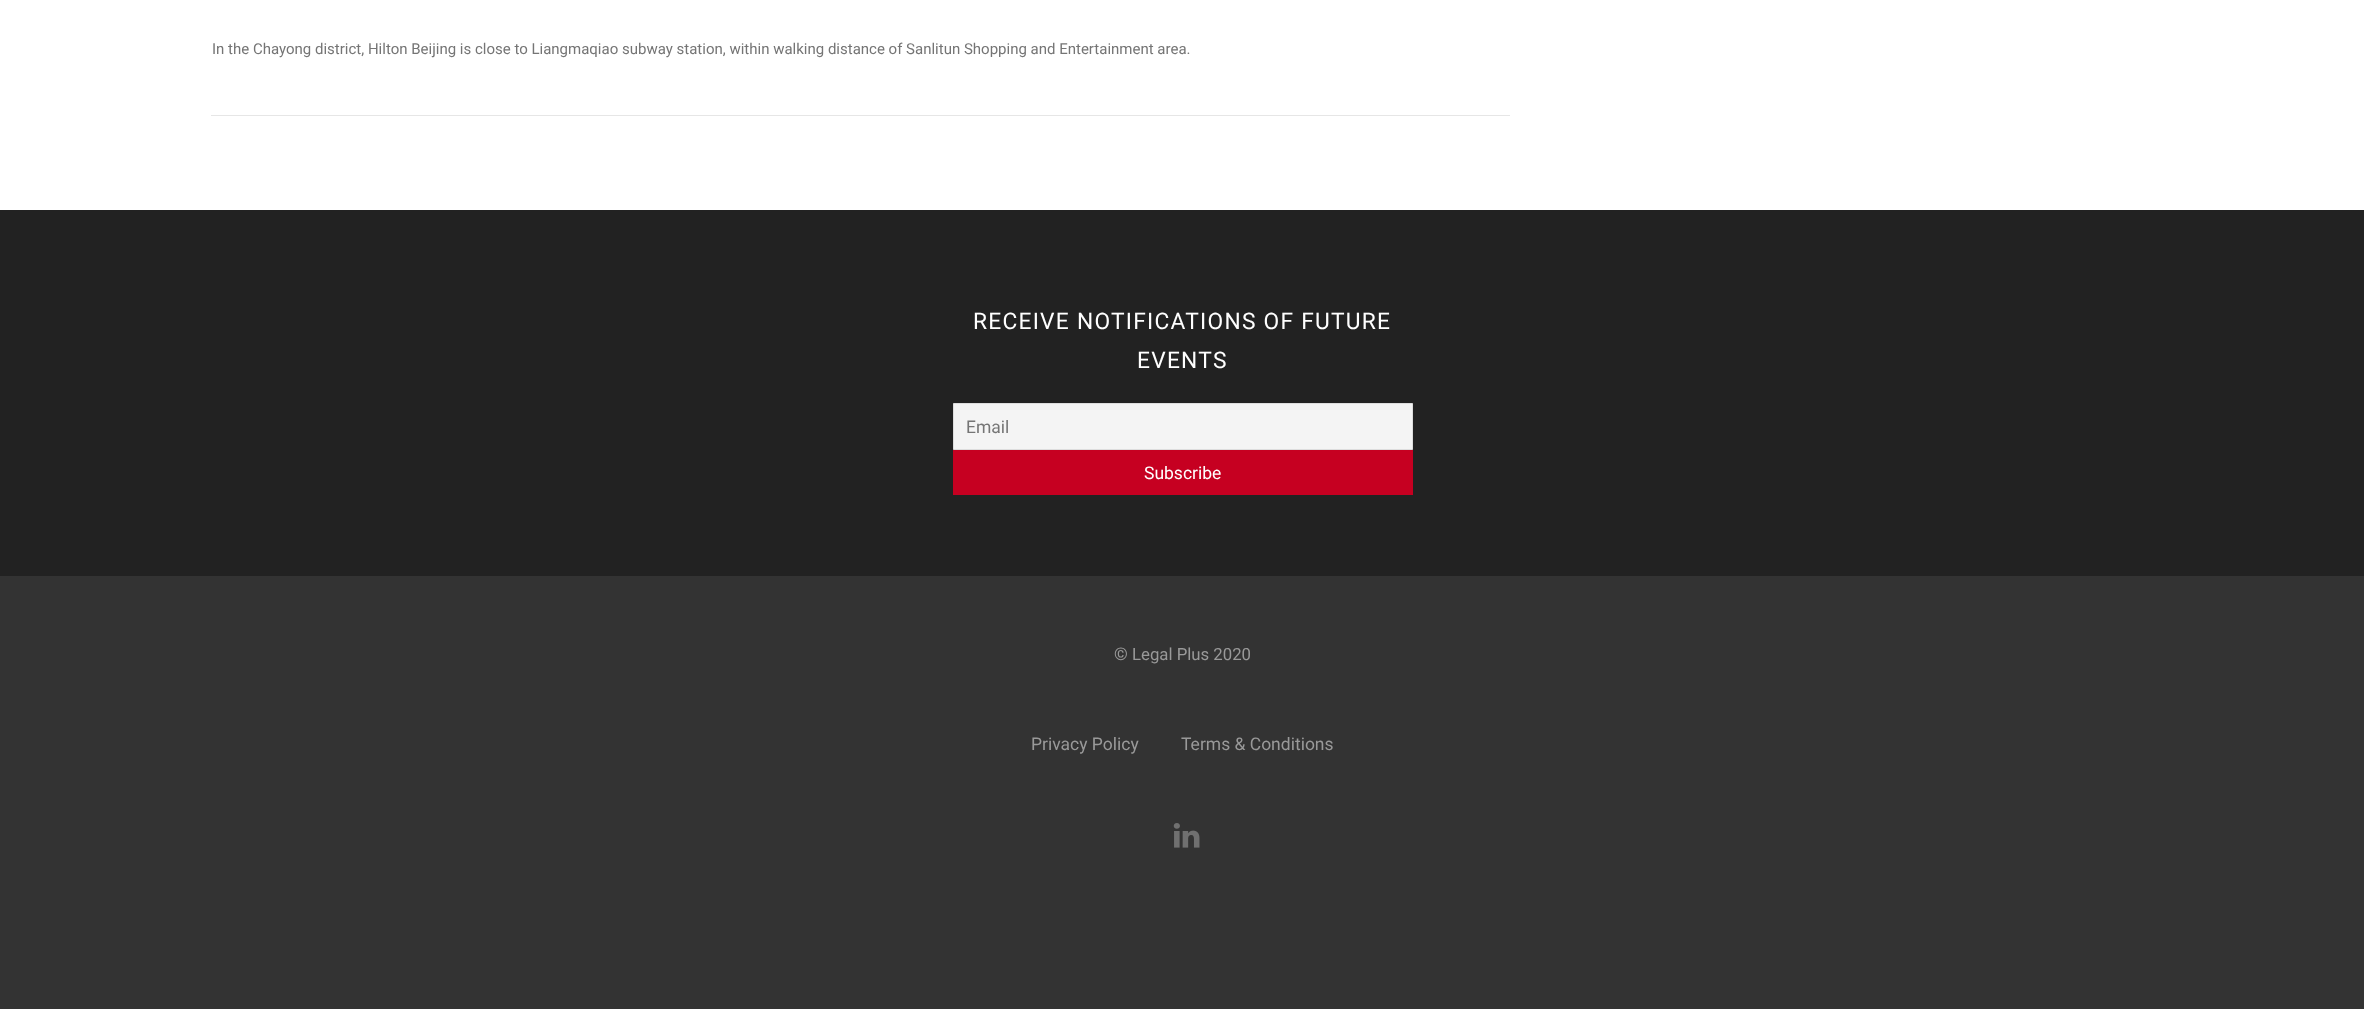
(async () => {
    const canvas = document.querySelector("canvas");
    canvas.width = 2364;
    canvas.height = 1009;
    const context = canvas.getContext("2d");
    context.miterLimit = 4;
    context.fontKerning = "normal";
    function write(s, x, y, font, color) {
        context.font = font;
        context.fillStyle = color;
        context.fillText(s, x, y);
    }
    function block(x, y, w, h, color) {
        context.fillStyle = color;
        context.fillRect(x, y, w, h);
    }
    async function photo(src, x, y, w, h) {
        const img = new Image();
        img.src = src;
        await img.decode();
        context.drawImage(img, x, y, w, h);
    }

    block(0, 0, 2364, 1009, "rgb(255, 255, 255)");
    write("In the Chayong district, Hilton Beijing is close to Liangmaqiao subway station, within walking distance of Sanlitun Shopping and Entertainment area.", 212, 54, "15px Roboto", "rgb(117, 117, 117)");
    block(211, 115, 1299, 1, "rgb(230, 230, 230)");
    block(0, 210, 2364, 366, "rgb(34, 34, 34)");
    context.letterSpacing = "1.25px";
    write("RECEIVE NOTIFICATIONS OF FUTURE", 973, 329, "22.75px Roboto", "rgb(255, 255, 255)");
    write("EVENTS", 1137, 368, "22.75px Roboto", "rgb(255, 255, 255)");
    context.fillStyle = "rgb(244, 244, 244)";
    context.beginPath();
    context.rect(953.5, 403.5, 459, 46);
    context.fill();
    context.strokeStyle = "rgb(221, 221, 221)";
    context.stroke();
    context.letterSpacing = "0px";
    write("Email", 966, 433, "17.5px Roboto", "rgb(117, 117, 117)");
    block(953, 450, 460, 45, "rgb(198, 0, 33)");
    write("Subscribe", 1144, 479, "17.5px Roboto", "rgb(255, 255, 255)");
    block(0, 576, 2364, 433, "rgb(51, 51, 51)");
    write("©", 1114, 660, "17.5px Roboto", "rgb(153, 153, 153)");
    write("Legal Plus 2020", 1132, 660, "16.75px Roboto", "rgb(153, 153, 153)");
    write("Privacy Policy", 1031, 750, "17.5px Roboto", "rgb(153, 153, 153)");
    write("Terms & Conditions", 1181, 750, "17.5px Roboto", "rgb(153, 153, 153)");
    await photo("media/1.png", 1173, 823, 27, 25);
})();
